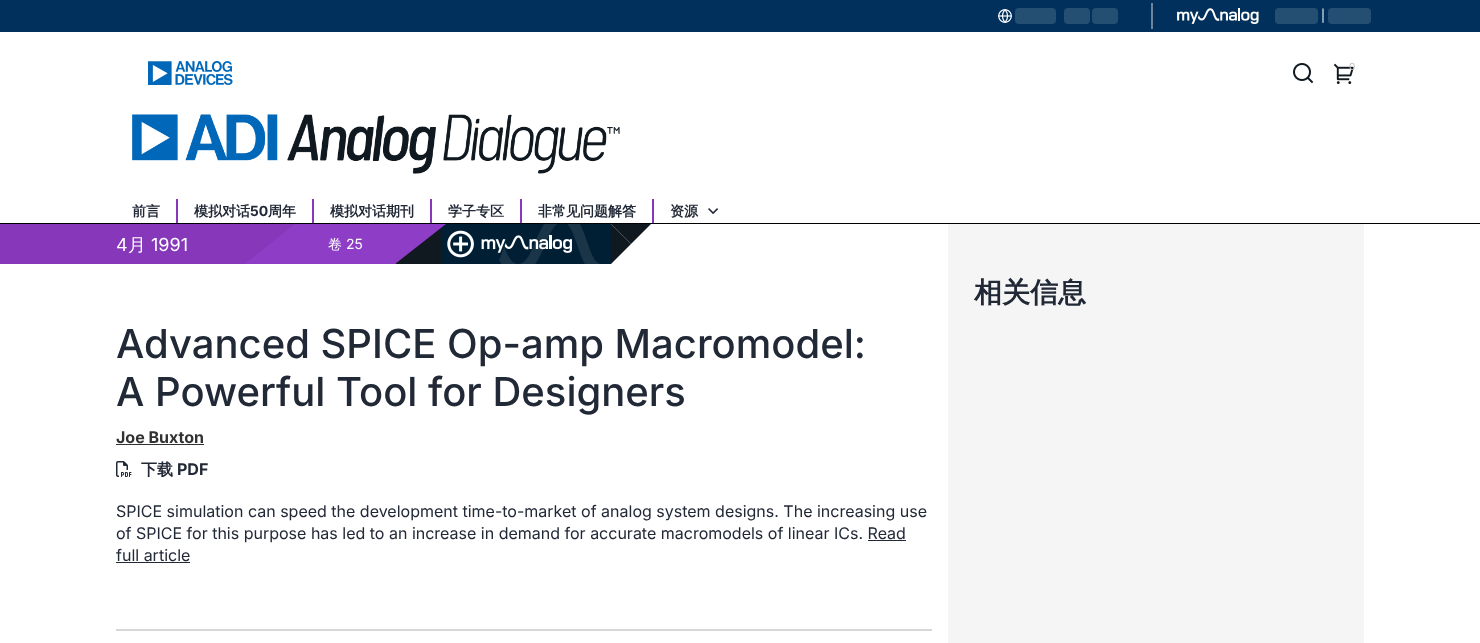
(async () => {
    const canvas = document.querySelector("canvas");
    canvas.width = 1480;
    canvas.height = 643;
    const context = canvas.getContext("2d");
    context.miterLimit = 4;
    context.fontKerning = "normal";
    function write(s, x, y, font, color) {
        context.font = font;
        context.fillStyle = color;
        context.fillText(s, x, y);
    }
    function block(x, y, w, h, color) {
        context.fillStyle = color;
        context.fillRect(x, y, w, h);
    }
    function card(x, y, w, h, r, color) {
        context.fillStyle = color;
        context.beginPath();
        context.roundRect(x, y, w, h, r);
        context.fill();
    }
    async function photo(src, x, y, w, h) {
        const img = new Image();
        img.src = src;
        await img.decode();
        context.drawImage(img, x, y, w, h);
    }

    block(0, 0, 1480, 643, "rgb(255, 255, 255)");
    block(0, 0, 1480, 32, "rgb(0, 48, 91)");
    await photo("media/1.png", 998, 9, 14, 14);
    card(1015, 8, 41, 16, 4, "rgb(37, 78, 115)");
    card(1064, 8, 26, 16, 4, "rgb(37, 78, 115)");
    card(1092, 8, 26, 16, 4, "rgb(37, 78, 115)");
    block(1151, 3, 2, 26, "rgb(107, 132, 156)");
    await photo("media/2.png", 1177, 8, 82, 16);
    card(1275, 8, 43, 16, 4, "rgb(37, 78, 115)");
    write("|", 1321, 20, "12px Inter", "rgb(255, 255, 255)");
    card(1328, 8, 43, 16, 4, "rgb(37, 78, 115)");
    await photo("media/3.png", 148, 61, 85, 24);
    await photo("media/4.png", 1293, 63, 21, 21);
    await photo("media/5.png", 1333, 63, 21, 21);
    write("0", 1349, 70, "10px Inter", "rgb(191, 193, 195)");
    block(0, 223, 1480, 1, "rgb(0, 0, 0)");
    await photo("media/6.png", 132, 114, 488, 60);
    write("前言", 132, 216, "bold 14px WenQuanYi Zen Hei", "rgb(33, 40, 54)");
    block(176, 199, 2, 24, "rgb(134, 55, 186)");
    write("模拟对话", 194, 216, "bold 14px WenQuanYi Zen Hei", "rgb(33, 40, 54)");
    write("50", 250, 216, "bold 14px Inter", "rgb(33, 40, 54)");
    write("周年", 268, 216, "bold 14px WenQuanYi Zen Hei", "rgb(33, 40, 54)");
    block(312, 199, 2, 24, "rgb(134, 55, 186)");
    write("模拟对话期刊", 330, 216, "bold 14px WenQuanYi Zen Hei", "rgb(33, 40, 54)");
    block(430, 199, 2, 24, "rgb(134, 55, 186)");
    write("学子专区", 448, 216, "bold 14px WenQuanYi Zen Hei", "rgb(33, 40, 54)");
    block(520, 199, 2, 24, "rgb(134, 55, 186)");
    write("非常见问题解答", 538, 216, "bold 14px WenQuanYi Zen Hei", "rgb(33, 40, 54)");
    block(652, 199, 2, 24, "rgb(134, 55, 186)");
    write("资源", 670, 216, "bold 14px WenQuanYi Zen Hei", "rgb(33, 40, 54)");
    await photo("media/7.png", 708, 208, 11, 6);
    block(0, 224, 247, 40, "rgb(134, 55, 186)");
    write("4", 116, 251, "18px Inter", "rgb(255, 255, 255)");
    write("月", 128, 251, "500 18px WenQuanYi Zen Hei", "rgb(255, 255, 255)");
    write("1991", 151, 251, "18px Inter", "rgb(255, 255, 255)");
    context.fillStyle = "rgb(134, 55, 186)";
    context.beginPath();
    context.moveTo(247, 264);
    context.lineTo(247, 224);
    context.lineTo(297, 224);
    context.closePath();
    context.fill();
    context.fillStyle = "rgb(142, 61, 199)";
    context.beginPath();
    context.moveTo(295, 224);
    context.lineTo(295, 264);
    context.lineTo(245, 264);
    context.closePath();
    context.fill();
    block(295, 224, 101, 40, "rgb(142, 61, 199)");
    write("卷", 328, 249, "500 14px WenQuanYi Zen Hei", "rgb(255, 255, 255)");
    write("25", 346, 249, "14px Inter", "rgb(255, 255, 255)");
    block(396, 228, 45, 36, "rgb(16, 24, 32)");
    block(441, 224, 170, 40, "rgb(0, 31, 52)");
    context.fillStyle = "rgb(142, 61, 199)";
    context.beginPath();
    context.moveTo(395, 264);
    context.lineTo(395, 224);
    context.lineTo(446, 224);
    context.closePath();
    context.fill();
    await photo("media/8.png", 447, 224, 153, 40);
    context.fillStyle = "rgb(16, 24, 32)";
    context.beginPath();
    context.moveTo(611, 224);
    context.lineTo(651, 224);
    context.lineTo(631, 244);
    context.closePath();
    context.fill();
    context.beginPath();
    context.moveTo(611, 264);
    context.lineTo(611, 224);
    context.lineTo(631, 244);
    context.closePath();
    context.fill();
    write("Advanced SPICE Op-amp Macromodel:", 116, 358, "500 40px Inter", "rgb(33, 40, 54)");
    write("A Powerful Tool for Designers", 116, 406, "500 40px Inter", "rgb(33, 40, 54)");
    write("Joe Buxton", 116, 443, "bold 16px Inter", "rgb(50, 50, 50)");
    block(116, 444, 88, 1, "rgb(50, 50, 50)");
    await photo("media/9.png", 116, 461, 16, 16);
    write("下载", 141, 475, "bold 16px WenQuanYi Zen Hei", "rgb(33, 40, 54)");
    write("PDF", 177, 475, "bold 16px Inter", "rgb(33, 40, 54)");
    write("SPICE simulation can speed the development time-to-market of analog system designs. The increasing use", 116, 517, "16px Inter", "rgb(33, 40, 54)");
    write("of SPICE for this purpose has led to an increase in demand for accurate macromodels of linear ICs. Read", 116, 539, "16px Inter", "rgb(33, 40, 54)");
    write("full article", 116, 561, "16px Inter", "rgb(33, 40, 54)");
    block(868, 540, 38, 1, "rgb(33, 40, 54)");
    block(116, 562, 74, 1, "rgb(33, 40, 54)");
    block(116, 629, 816, 2, "rgb(215, 215, 215)");
    block(948, 224, 416, 419, "rgb(245, 245, 245)");
    write("相关信息", 974, 302, "bold 28px WenQuanYi Zen Hei", "rgb(33, 40, 54)");
})();
